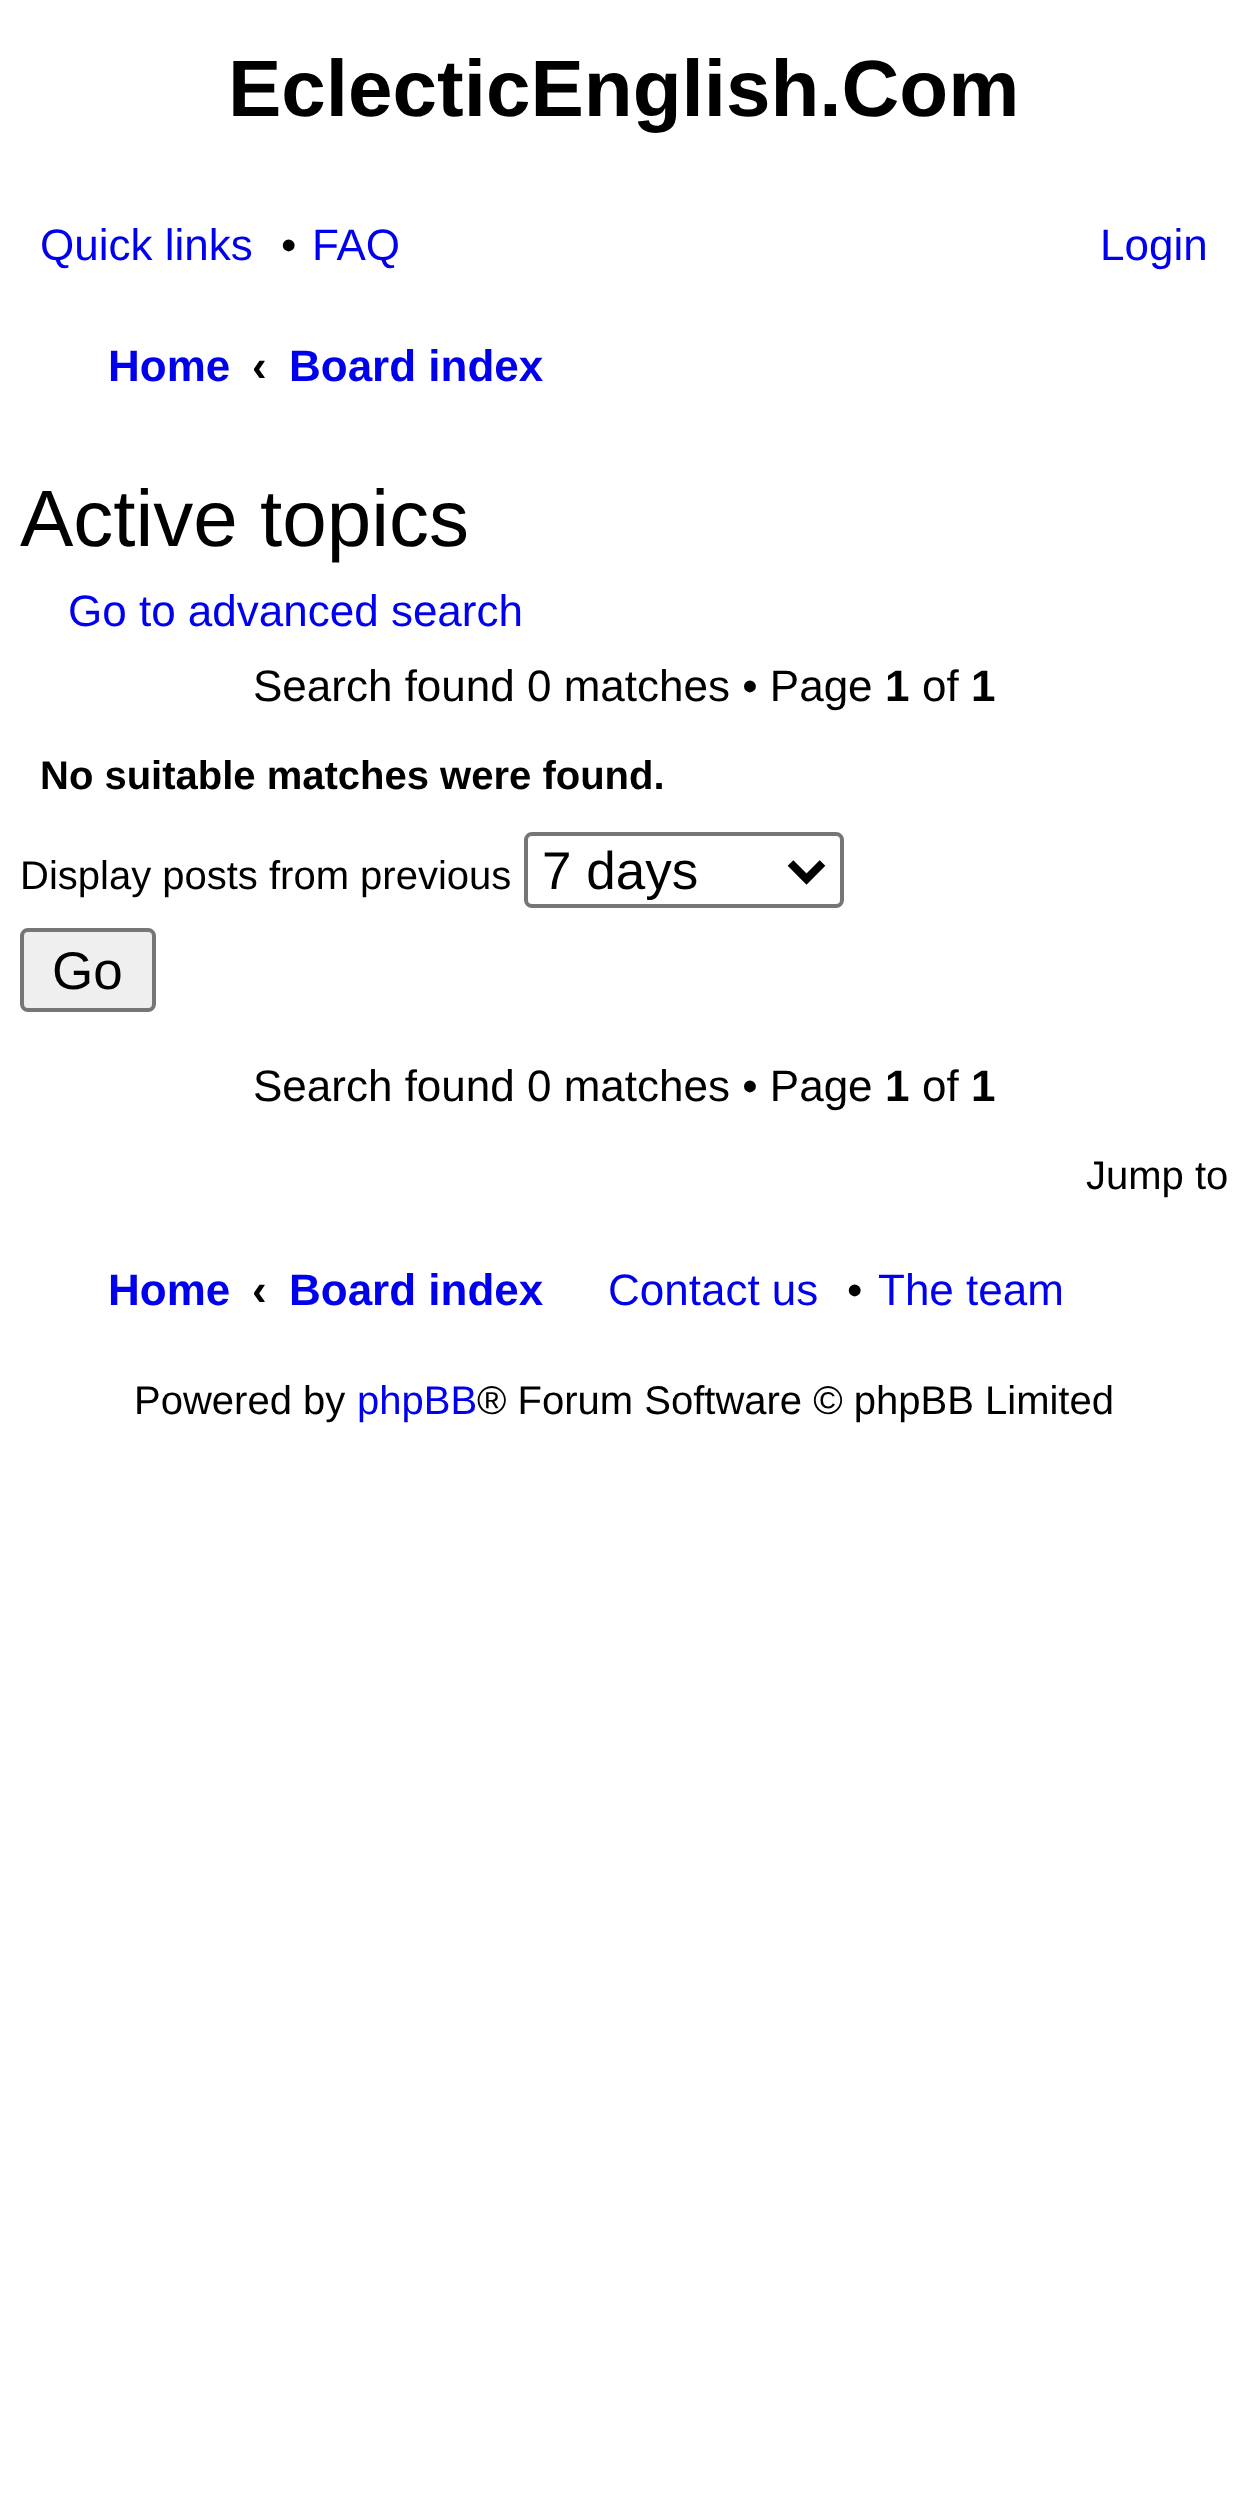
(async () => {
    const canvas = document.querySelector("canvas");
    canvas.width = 1245;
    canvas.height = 2502;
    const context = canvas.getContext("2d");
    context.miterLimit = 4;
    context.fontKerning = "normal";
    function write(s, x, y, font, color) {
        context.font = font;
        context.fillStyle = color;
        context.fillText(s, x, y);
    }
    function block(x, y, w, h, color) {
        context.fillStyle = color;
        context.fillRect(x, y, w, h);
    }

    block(0, 0, 1245, 2502, "rgb(255, 255, 255)");
    write("EclecticEnglish.Com", 228, 116, "bold 80px Liberation Sans", "rgb(0, 0, 0)");
    write("Quick links", 40, 260, "44px Liberation Sans", "rgb(0, 0, 238)");
    write("•", 281, 260, "44px Liberation Sans", "rgb(0, 0, 0)");
    write("FAQ", 312, 260, "44px Liberation Sans", "rgb(0, 0, 238)");
    write("Login", 1100, 260, "44px Liberation Sans", "rgb(0, 0, 238)");
    write("Home", 108, 381, "bold 44px Liberation Sans", "rgb(0, 0, 238)");
    write("‹", 252, 381, "bold 44px Liberation Sans", "rgb(0, 0, 0)");
    write("Board index", 289, 381, "bold 44px Liberation Sans", "rgb(0, 0, 238)");
    write("Active topics", 20, 546, "80px Liberation Sans", "rgb(0, 0, 0)");
    write("Go to advanced search", 68, 626, "44px Liberation Sans", "rgb(0, 0, 238)");
    write("Search found 0 matches • Page", 253, 701, "44px Liberation Sans", "rgb(0, 0, 0)");
    write("1", 885, 701, "bold 44px Liberation Sans", "rgb(0, 0, 0)");
    write("of", 922, 701, "44px Liberation Sans", "rgb(0, 0, 0)");
    write("1", 971, 701, "bold 44px Liberation Sans", "rgb(0, 0, 0)");
    write("No suitable matches were found.", 40, 789, "bold 40px Liberation Sans", "rgb(0, 0, 0)");
    write("Display posts from previous", 20, 889, "40px Liberation Sans", "rgb(0, 0, 0)");
    context.beginPath();
    context.roundRect(526, 834, 316, 72, 6);
    context.strokeStyle = "rgb(118, 118, 118)";
    context.lineWidth = 4;
    context.stroke();
    context.beginPath();
    context.moveTo(790.5, 863);
    context.lineTo(806.5, 879);
    context.lineTo(822.5, 863);
    context.strokeStyle = "rgb(0, 0, 0)";
    context.lineWidth = 8;
    context.stroke();
    write("7 days", 542, 889, "53px Liberation Sans", "rgb(0, 0, 0)");
    context.fillStyle = "rgb(239, 239, 239)";
    context.beginPath();
    context.roundRect(22, 930, 132, 80, 6);
    context.fill();
    context.strokeStyle = "rgb(118, 118, 118)";
    context.lineWidth = 4;
    context.stroke();
    write("Go", 52, 989, "53px Liberation Sans", "rgb(0, 0, 0)");
    write("Search found 0 matches • Page", 253, 1101, "44px Liberation Sans", "rgb(0, 0, 0)");
    write("1", 885, 1101, "bold 44px Liberation Sans", "rgb(0, 0, 0)");
    write("of", 922, 1101, "44px Liberation Sans", "rgb(0, 0, 0)");
    write("1", 971, 1101, "bold 44px Liberation Sans", "rgb(0, 0, 0)");
    write("Jump to", 1086, 1189, "40px Liberation Sans", "rgb(0, 0, 0)");
    write("Home", 108, 1305, "bold 44px Liberation Sans", "rgb(0, 0, 238)");
    write("‹", 252, 1305, "bold 44px Liberation Sans", "rgb(0, 0, 0)");
    write("Board index", 289, 1305, "bold 44px Liberation Sans", "rgb(0, 0, 238)");
    write("Contact us", 608, 1305, "44px Liberation Sans", "rgb(0, 0, 238)");
    write("•", 847, 1305, "44px Liberation Sans", "rgb(0, 0, 0)");
    write("The team", 878, 1305, "44px Liberation Sans", "rgb(0, 0, 238)");
    write("Powered by", 134, 1414, "40px Liberation Sans", "rgb(0, 0, 0)");
    write("phpBB", 357, 1414, "40px Liberation Sans", "rgb(0, 0, 238)");
    write("® Forum Software © phpBB Limited", 477, 1414, "40px Liberation Sans", "rgb(0, 0, 0)");
})();
